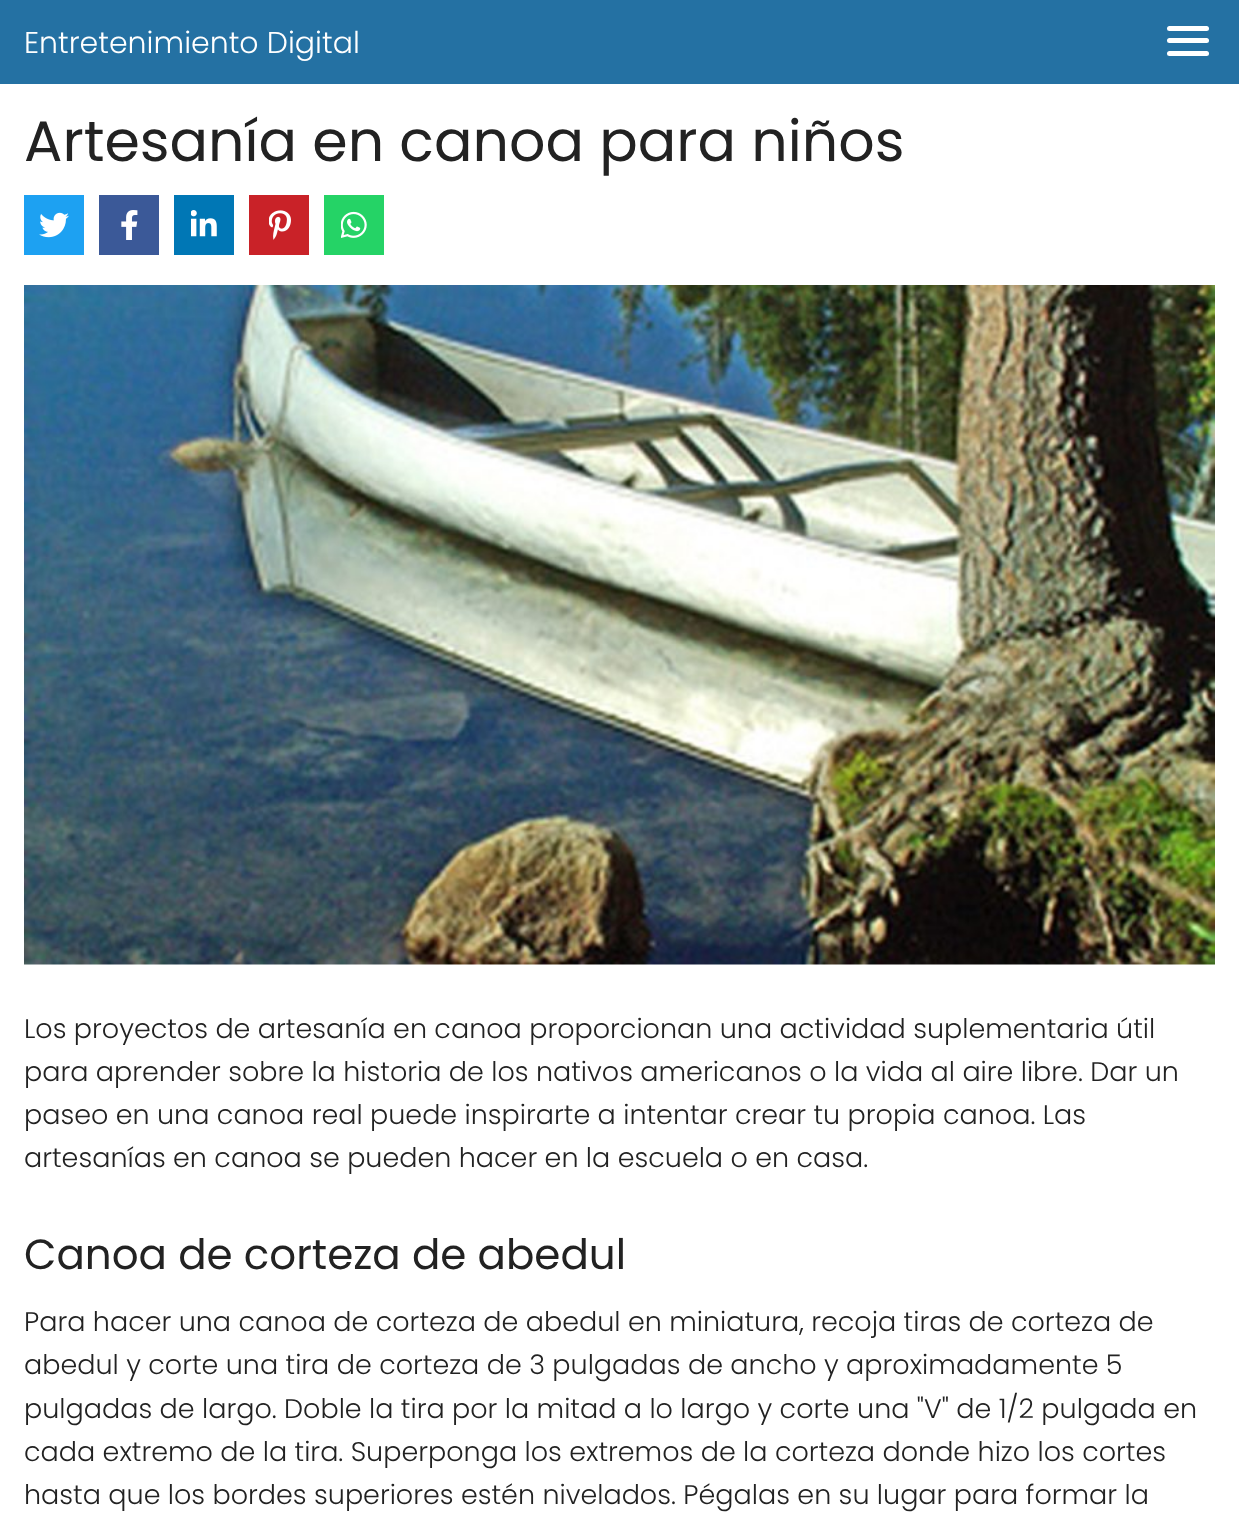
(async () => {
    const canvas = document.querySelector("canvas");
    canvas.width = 1239;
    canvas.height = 1519;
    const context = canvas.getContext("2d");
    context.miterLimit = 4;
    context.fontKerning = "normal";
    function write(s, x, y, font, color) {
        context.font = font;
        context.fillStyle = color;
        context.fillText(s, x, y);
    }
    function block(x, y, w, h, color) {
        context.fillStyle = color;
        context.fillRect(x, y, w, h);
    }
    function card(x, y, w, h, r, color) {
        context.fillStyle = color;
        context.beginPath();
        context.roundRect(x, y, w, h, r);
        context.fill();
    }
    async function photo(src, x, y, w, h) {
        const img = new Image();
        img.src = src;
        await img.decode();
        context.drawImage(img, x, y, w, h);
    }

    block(0, 0, 1239, 1519, "rgb(255, 255, 255)");
    block(0, 0, 1239, 84, "rgb(36, 113, 163)");
    write("Entretenimiento Digital", 24, 53, "300 30px Poppins", "rgb(255, 255, 255)");
    card(1167, 26, 42, 5, 2.5, "rgb(255, 255, 255)");
    card(1167, 38, 42, 5, 2.5, "rgb(255, 255, 255)");
    card(1167, 51, 42, 5, 2.5, "rgb(255, 255, 255)");
    write("Artesanía en canoa para niños", 24, 161, "57px Poppins", "rgb(34, 34, 34)");
    block(24, 195, 60, 60, "rgb(29, 161, 242)");
    await photo("media/1.png", 39, 212, 30, 26);
    block(99, 195, 60, 60, "rgb(59, 89, 152)");
    await photo("media/2.png", 121, 210, 17, 30);
    block(174, 195, 60, 60, "rgb(0, 119, 181)");
    await photo("media/3.png", 191, 210, 26, 27);
    block(249, 195, 60, 60, "rgb(201, 34, 40)");
    await photo("media/4.png", 269, 210, 22, 30);
    block(324, 195, 60, 60, "rgb(37, 211, 102)");
    await photo("media/5.png", 341, 211, 26, 27);
    await photo("media/6.png", 24, 285, 1191, 680);
    write("Los proyectos de artesanía en canoa proporcionan una actividad suplementaria útil", 24, 1038, "300 27px Poppins", "rgb(34, 34, 34)");
    write("para aprender sobre la historia de los nativos americanos o la vida al aire libre. Dar un", 24, 1081, "300 27px Poppins", "rgb(34, 34, 34)");
    write("paseo en una canoa real puede inspirarte a intentar crear tu propia canoa. Las", 24, 1124, "300 27px Poppins", "rgb(34, 34, 34)");
    write("artesanías en canoa se pueden hacer en la escuela o en casa.", 24, 1167, "300 27px Poppins", "rgb(34, 34, 34)");
    write("Canoa de corteza de abedul", 24, 1269, "42px Poppins", "rgb(34, 34, 34)");
    write("Para hacer una canoa de corteza de abedul en miniatura, recoja tiras de corteza de", 24, 1331, "300 27px Poppins", "rgb(34, 34, 34)");
    write("abedul y corte una tira de corteza de 3 pulgadas de ancho y aproximadamente 5", 24, 1374, "300 27px Poppins", "rgb(34, 34, 34)");
    write("pulgadas de largo. Doble la tira por la mitad a lo largo y corte una \"V\" de 1/2 pulgada en", 24, 1418, "300 27px Poppins", "rgb(34, 34, 34)");
    write("cada extremo de la tira. Superponga los extremos de la corteza donde hizo los cortes", 24, 1461, "300 27px Poppins", "rgb(34, 34, 34)");
    write("hasta que los bordes superiores estén nivelados. Pégalas en su lugar para formar la", 24, 1504, "300 27px Poppins", "rgb(34, 34, 34)");
})();
